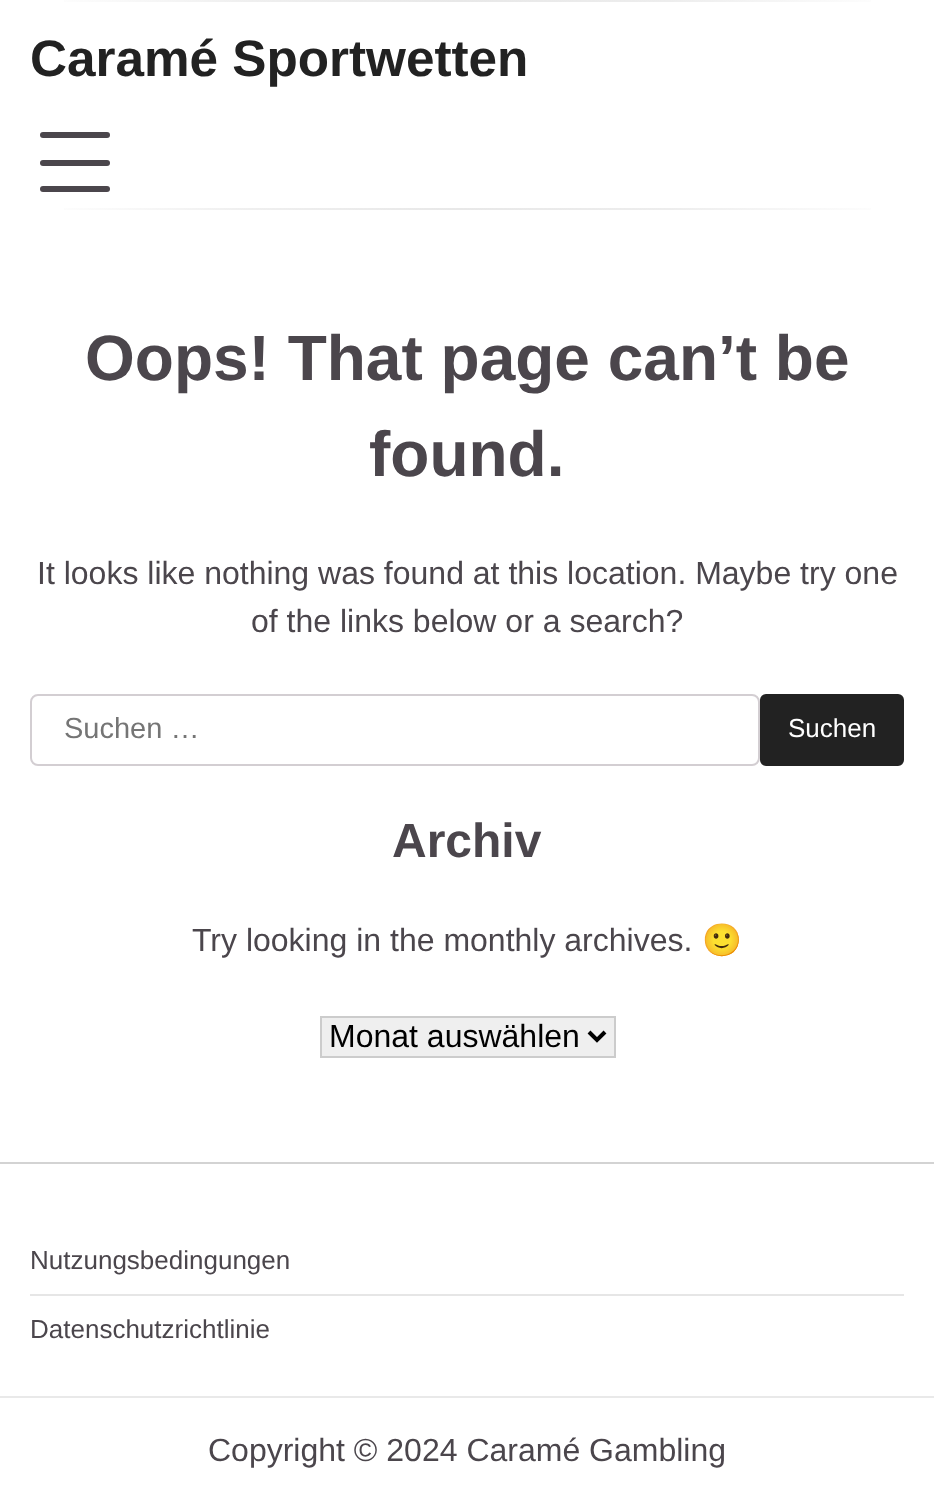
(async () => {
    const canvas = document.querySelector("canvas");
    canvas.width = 934;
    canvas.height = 1493;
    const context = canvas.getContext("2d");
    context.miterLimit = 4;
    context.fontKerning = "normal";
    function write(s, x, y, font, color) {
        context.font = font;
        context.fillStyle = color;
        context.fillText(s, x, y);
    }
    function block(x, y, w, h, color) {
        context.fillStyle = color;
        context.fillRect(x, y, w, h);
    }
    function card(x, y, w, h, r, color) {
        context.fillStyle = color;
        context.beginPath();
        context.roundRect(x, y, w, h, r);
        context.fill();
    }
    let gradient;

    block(0, 0, 934, 1493, "rgb(255, 255, 255)");
    gradient = context.createLinearGradient(30, 1, 904, 1);
    gradient.addColorStop(0, "rgb(255, 255, 255)");
    gradient.addColorStop(0.25, "rgb(239, 239, 239)");
    gradient.addColorStop(0.49, "rgb(232, 232, 232)");
    gradient.addColorStop(0.73, "rgb(237, 237, 237)");
    gradient.addColorStop(1, "rgb(255, 255, 255)");
    context.fillStyle = gradient;
    context.fillRect(64, 0, 807, 2);
    write("Caramé Sportwetten", 30, 76, "bold 51.25px Liberation Sans", "rgb(34, 34, 34)");
    card(40, 132, 70, 6, 3, "rgb(75, 70, 76)");
    card(40, 160, 70, 6, 3, "rgb(75, 70, 76)");
    card(40, 186, 70, 6, 3, "rgb(75, 70, 76)");
    gradient = context.createLinearGradient(30, 209, 904, 209);
    gradient.addColorStop(0, "rgb(255, 255, 255)");
    gradient.addColorStop(0.25, "rgb(239, 239, 239)");
    gradient.addColorStop(0.49, "rgb(232, 232, 232)");
    gradient.addColorStop(0.73, "rgb(237, 237, 237)");
    gradient.addColorStop(1, "rgb(255, 255, 255)");
    context.fillStyle = gradient;
    context.fillRect(64, 208, 807, 2);
    write("Oops! That page can’t be", 85, 380, "bold 64px Liberation Sans", "rgb(75, 70, 76)");
    write("found.", 369, 476, "bold 64px Liberation Sans", "rgb(75, 70, 76)");
    write("It looks like nothing was found at this location. Maybe try one", 37, 584, "32px Liberation Sans", "rgb(75, 70, 76)");
    write("of the links below or a search?", 251, 632, "32px Liberation Sans", "rgb(75, 70, 76)");
    context.beginPath();
    context.roundRect(31, 695, 728, 70, 7);
    context.strokeStyle = "rgb(211, 206, 210)";
    context.lineWidth = 2;
    context.stroke();
    write("Suchen …", 64, 738, "29px Liberation Sans", "rgb(117, 117, 117)");
    context.fillStyle = "rgb(34, 34, 34)";
    context.beginPath();
    context.roundRect(761, 695, 142, 70, 5);
    context.fill();
    context.strokeStyle = "rgb(34, 34, 34)";
    context.stroke();
    write("Suchen", 788, 737, "26px Liberation Sans", "rgb(255, 255, 255)");
    write("Archiv", 392, 857, "bold 48px Liberation Sans", "rgb(75, 70, 76)");
    write("Try looking in the monthly archives.", 192, 951, "32px Liberation Sans", "rgb(75, 70, 76)");
    write("🙂", 702, 951, "32px Noto Color Emoji", "rgb(75, 70, 76)");
    context.fillStyle = "rgb(239, 239, 239)";
    context.beginPath();
    context.rect(321, 1017, 294, 40);
    context.fill();
    context.strokeStyle = "rgb(204, 204, 204)";
    context.stroke();
    context.beginPath();
    context.moveTo(589, 1032);
    context.lineTo(597, 1040);
    context.lineTo(605, 1032);
    context.strokeStyle = "rgb(0, 0, 0)";
    context.lineWidth = 4;
    context.stroke();
    write("Monat auswählen", 329, 1047, "32px Liberation Sans", "rgb(0, 0, 0)");
    block(0, 1162, 934, 2, "rgb(211, 211, 211)");
    block(30, 1294, 874, 2, "rgb(230, 230, 230)");
    write("Nutzungsbedingungen", 30, 1269, "26px Liberation Sans", "rgb(75, 70, 76)");
    write("Datenschutzrichtlinie", 30, 1338, "26px Liberation Sans", "rgb(75, 70, 76)");
    block(0, 1396, 934, 2, "rgb(233, 233, 233)");
    write("Copyright © 2024 Caramé Gambling", 208, 1461, "32px Liberation Sans", "rgb(75, 70, 76)");
})();
